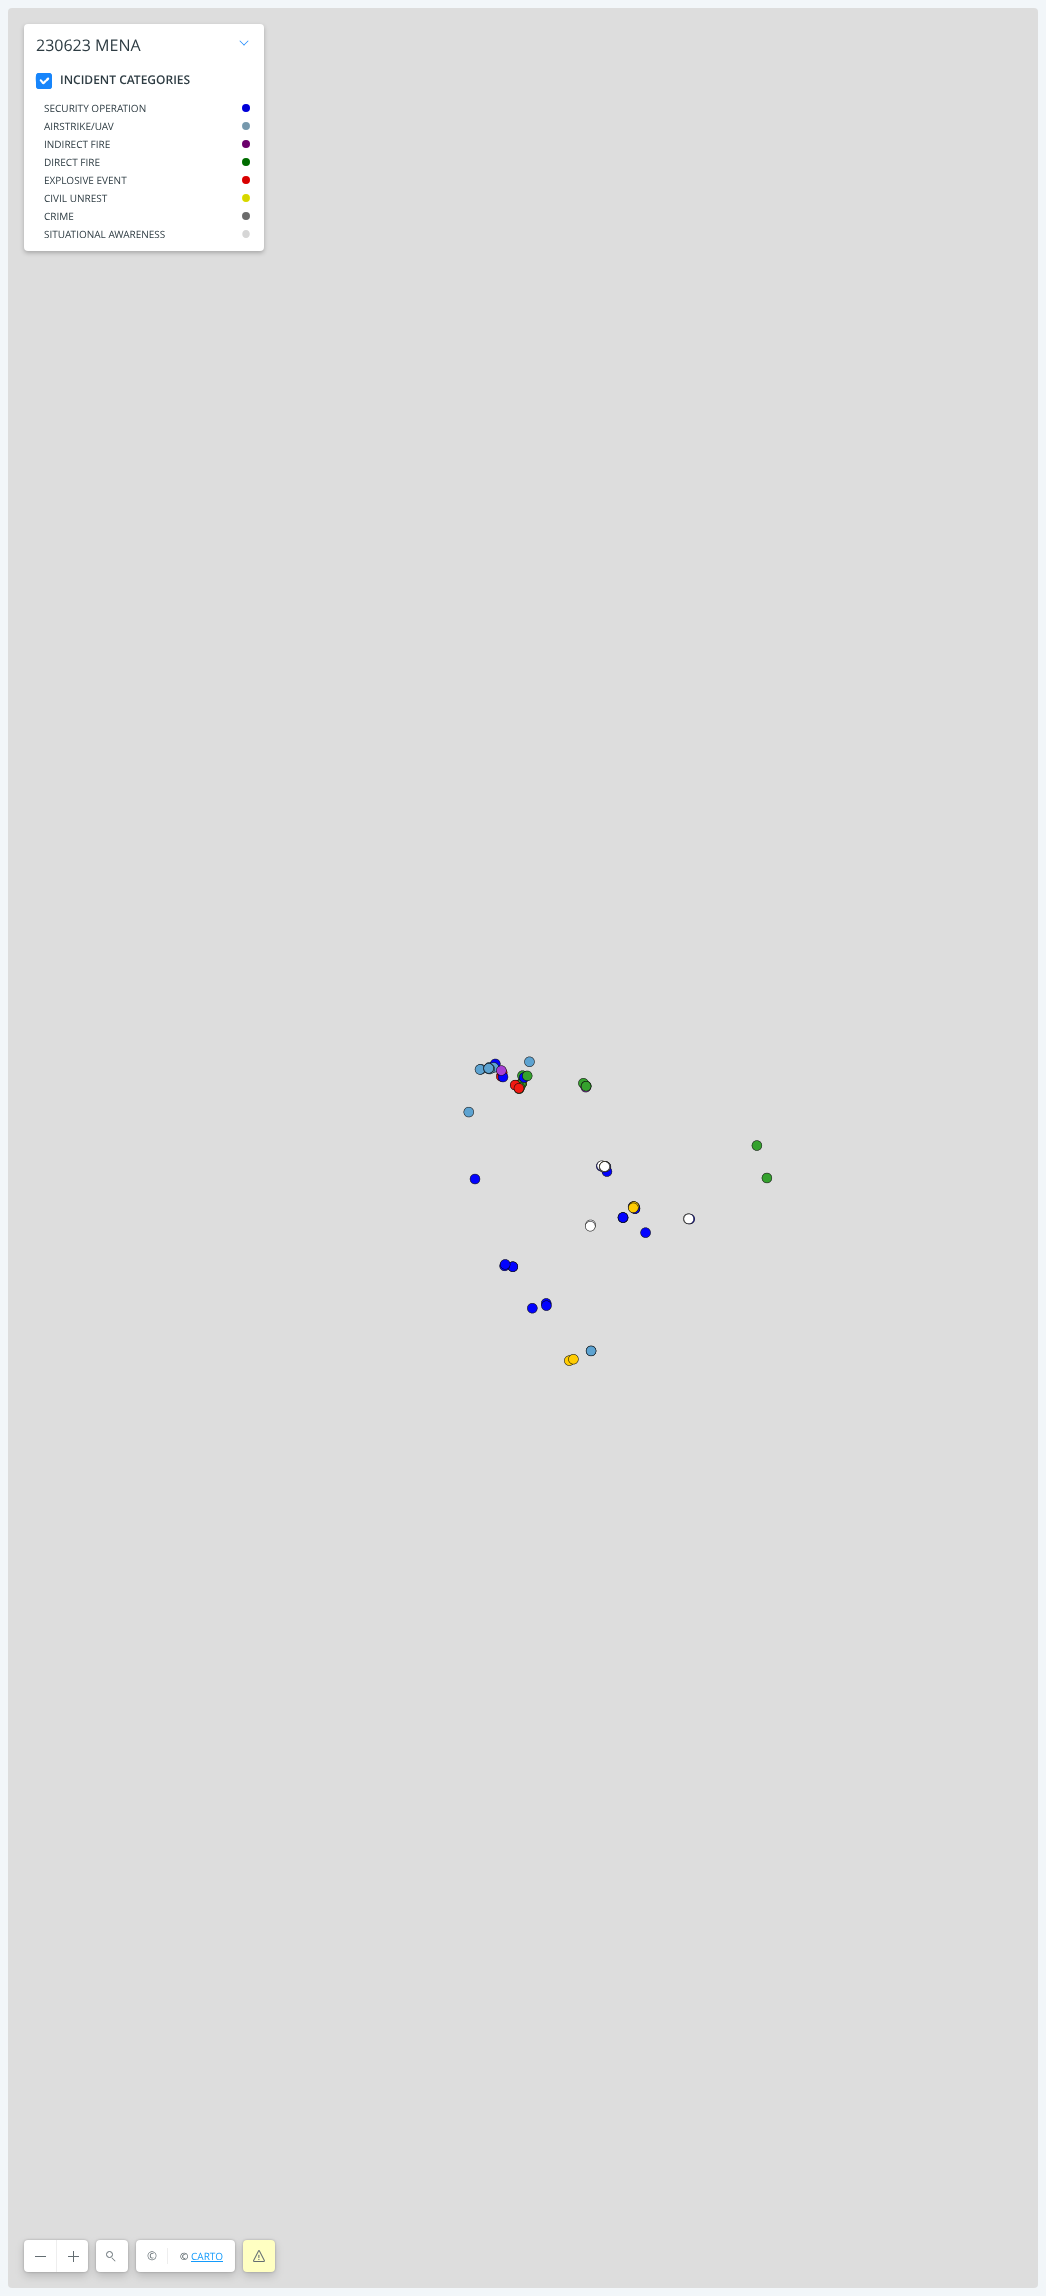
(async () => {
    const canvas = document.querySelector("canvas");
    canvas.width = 1046;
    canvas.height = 2296;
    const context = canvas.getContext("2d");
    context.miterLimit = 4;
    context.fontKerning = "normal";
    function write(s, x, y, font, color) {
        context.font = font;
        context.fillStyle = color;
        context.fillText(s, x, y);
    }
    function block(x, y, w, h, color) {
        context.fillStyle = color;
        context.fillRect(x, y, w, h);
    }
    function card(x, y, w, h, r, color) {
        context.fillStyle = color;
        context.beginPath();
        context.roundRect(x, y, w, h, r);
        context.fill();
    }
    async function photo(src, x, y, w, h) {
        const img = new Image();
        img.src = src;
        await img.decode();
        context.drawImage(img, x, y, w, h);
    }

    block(0, 0, 1046, 2296, "rgb(242, 246, 249)");
    card(8, 8, 1030, 2280, 4, "rgb(221, 221, 221)");
    await photo("media/1.png", 463, 1056, 72, 204);
    await photo("media/2.png", 578, 1078, 195, 160);
    await photo("media/3.png", 499, 1260, 72, 106);
    await photo("media/4.png", 571, 1345, 26, 21);
    context.fillStyle = "rgba(0, 0, 0, 0.24)";
    context.filter = "blur(2px)";
    context.beginPath();
    context.roundRect(24, 26, 240, 227, 4);
    context.fill();
    context.filter = "none";
    card(24, 24, 240, 227, 4, "rgb(255, 255, 255)");
    write("230623 MENA", 36, 51, "16px Open Sans", "rgb(46, 60, 67)");
    context.fillStyle = "rgb(23, 133, 251)";
    context.beginPath();
    context.moveTo(248.5, 41);
    context.lineTo(244, 45.5);
    context.lineTo(243.5, 45);
    context.lineTo(248, 40.5);
    context.closePath();
    context.fill();
    context.beginPath();
    context.moveTo(244, 45.5);
    context.lineTo(239.5, 41);
    context.lineTo(240, 40.5);
    context.lineTo(244.5, 45);
    context.closePath();
    context.fill();
    card(36, 73, 16, 16, 3, "rgb(23, 133, 251)");
    context.beginPath();
    context.moveTo(39, 73);
    context.bezierCurveTo(34.5, 73, 36, 80, 36, 82.5);
    context.bezierCurveTo(36, 90, 37, 89, 44, 89);
    context.lineTo(49.5, 89);
    context.bezierCurveTo(52.5, 88.5, 52, 85, 52, 82.5);
    context.lineTo(52, 77.5);
    context.bezierCurveTo(52, 75.5, 51.5, 73, 49, 73);
    context.closePath();
    context.fill();
    context.fillStyle = "rgb(255, 255, 255)";
    context.beginPath();
    context.moveTo(49, 78);
    context.bezierCurveTo(50, 79, 47.5, 81, 46.5, 81.5);
    context.bezierCurveTo(46, 82, 44.5, 85, 43, 83.5);
    context.bezierCurveTo(42, 82.5, 44.5, 80.5, 45.5, 80);
    context.bezierCurveTo(46, 79.5, 47.5, 76.5, 49, 78);
    context.closePath();
    context.fill();
    context.beginPath();
    context.moveTo(40, 79.5);
    context.bezierCurveTo(41, 78.5, 42.5, 80.5, 43, 81.5);
    context.bezierCurveTo(43.5, 82, 45, 83, 44, 84);
    context.bezierCurveTo(43, 85, 41.5, 83, 41, 82);
    context.bezierCurveTo(40.5, 81.5, 39, 80.5, 40, 79.5);
    context.closePath();
    context.fill();
    write("INCIDENT CATEGORIES", 60, 84, "600 12px Open Sans", "rgb(46, 60, 67)");
    write("SECURITY OPERATION", 44, 112, "10px Open Sans", "rgb(46, 60, 67)");
    context.fillStyle = "rgb(0, 0, 255)";
    context.beginPath();
    context.arc(246, 108, 4, 0, Math.PI * 2);
    context.fill();
    context.fillStyle = "rgba(0, 0, 0, 0.16)";
    context.beginPath();
    context.moveTo(246, 104);
    context.bezierCurveTo(241, 104, 241, 112, 246, 112);
    context.bezierCurveTo(251, 112, 251, 104, 246, 104);
    context.closePath();
    context.fill();
    write("AIRSTRIKE/UAV", 44, 130, "10px Open Sans", "rgb(46, 60, 67)");
    context.fillStyle = "rgb(141, 182, 205)";
    context.beginPath();
    context.arc(246, 126, 4, 0, Math.PI * 2);
    context.fill();
    context.fillStyle = "rgba(0, 0, 0, 0.16)";
    context.beginPath();
    context.moveTo(246, 122);
    context.bezierCurveTo(241, 122, 241, 130, 246, 130);
    context.bezierCurveTo(251, 130, 251, 122, 246, 122);
    context.closePath();
    context.fill();
    write("INDIRECT FIRE", 44, 148, "10px Open Sans", "rgb(46, 60, 67)");
    context.fillStyle = "rgb(128, 0, 128)";
    context.beginPath();
    context.arc(246, 144, 4, 0, Math.PI * 2);
    context.fill();
    context.fillStyle = "rgba(0, 0, 0, 0.16)";
    context.beginPath();
    context.moveTo(246, 140);
    context.bezierCurveTo(241, 140, 241, 148, 246, 148);
    context.bezierCurveTo(251, 148, 251, 140, 246, 140);
    context.closePath();
    context.fill();
    write("DIRECT FIRE", 44, 166, "10px Open Sans", "rgb(46, 60, 67)");
    context.fillStyle = "rgb(0, 128, 0)";
    context.beginPath();
    context.arc(246, 162, 4, 0, Math.PI * 2);
    context.fill();
    context.fillStyle = "rgba(0, 0, 0, 0.16)";
    context.beginPath();
    context.moveTo(246, 158);
    context.bezierCurveTo(241, 158, 241, 166, 246, 166);
    context.bezierCurveTo(251, 166, 251, 158, 246, 158);
    context.closePath();
    context.fill();
    write("EXPLOSIVE EVENT", 44, 184, "10px Open Sans", "rgb(46, 60, 67)");
    context.fillStyle = "rgb(255, 0, 0)";
    context.beginPath();
    context.arc(246, 180, 4, 0, Math.PI * 2);
    context.fill();
    context.fillStyle = "rgba(0, 0, 0, 0.16)";
    context.beginPath();
    context.moveTo(246, 176);
    context.bezierCurveTo(241, 176, 241, 184, 246, 184);
    context.bezierCurveTo(251, 184, 251, 176, 246, 176);
    context.closePath();
    context.fill();
    write("CIVIL UNREST", 44, 202, "10px Open Sans", "rgb(46, 60, 67)");
    context.fillStyle = "rgb(255, 255, 0)";
    context.beginPath();
    context.arc(246, 198, 4, 0, Math.PI * 2);
    context.fill();
    context.fillStyle = "rgba(0, 0, 0, 0.16)";
    context.beginPath();
    context.moveTo(246, 194);
    context.bezierCurveTo(241, 194, 241, 202, 246, 202);
    context.bezierCurveTo(251, 202, 251, 194, 246, 194);
    context.closePath();
    context.fill();
    write("CRIME", 44, 220, "10px Open Sans", "rgb(46, 60, 67)");
    context.fillStyle = "rgb(128, 128, 128)";
    context.beginPath();
    context.arc(246, 216, 4, 0, Math.PI * 2);
    context.fill();
    context.fillStyle = "rgba(0, 0, 0, 0.16)";
    context.beginPath();
    context.moveTo(246, 212);
    context.bezierCurveTo(241, 212, 241, 220, 246, 220);
    context.bezierCurveTo(251, 220, 251, 212, 246, 212);
    context.closePath();
    context.fill();
    write("SITUATIONAL AWARENESS", 44, 238, "10px Open Sans", "rgb(46, 60, 67)");
    context.fillStyle = "rgb(214, 214, 214)";
    context.beginPath();
    context.moveTo(246, 230);
    context.bezierCurveTo(241, 230, 241, 238, 246, 238);
    context.bezierCurveTo(251, 238, 251, 230, 246, 230);
    context.closePath();
    context.fill();
    context.fillStyle = "rgba(0, 0, 0, 0.16)";
    context.filter = "blur(4px)";
    context.beginPath();
    context.roundRect(24, 2244, 64, 32, 4);
    context.fill();
    context.filter = "none";
    context.fillStyle = "rgba(0, 0, 0, 0.24)";
    context.filter = "blur(1px)";
    context.beginPath();
    context.roundRect(24, 2240, 64, 32, 4);
    context.fill();
    context.filter = "none";
    context.fillStyle = "rgb(255, 255, 255)";
    context.beginPath();
    context.roundRect(24, 2240, 32, 32, [4, 0, 0, 4]);
    context.fill();
    block(35, 2256, 11, 1, "rgb(99, 109, 114)");
    context.fillStyle = "rgb(255, 255, 255)";
    context.beginPath();
    context.roundRect(56, 2240, 32, 32, [0, 4, 4, 0]);
    context.fill();
    block(56, 2240, 1, 32, "rgb(238, 238, 238)");
    block(68, 2256, 11, 1, "rgb(99, 109, 114)");
    block(73, 2251, 1, 11, "rgb(99, 109, 114)");
    context.fillStyle = "rgba(0, 0, 0, 0.16)";
    context.filter = "blur(4px)";
    context.beginPath();
    context.roundRect(136, 2244, 99, 32, 4);
    context.fill();
    context.filter = "none";
    context.fillStyle = "rgba(0, 0, 0, 0.24)";
    context.filter = "blur(1px)";
    context.beginPath();
    context.roundRect(136, 2240, 99, 32, 4);
    context.fill();
    context.filter = "none";
    card(136, 2240, 99, 32, 4, "rgb(255, 255, 255)");
    context.fillStyle = "rgba(0, 0, 0, 0.16)";
    context.filter = "blur(4px)";
    context.beginPath();
    context.roundRect(96, 2244, 32, 32, 4);
    context.fill();
    context.filter = "none";
    context.fillStyle = "rgba(0, 0, 0, 0.24)";
    context.filter = "blur(1px)";
    context.beginPath();
    context.roundRect(96, 2240, 32, 32, 4);
    context.fill();
    context.filter = "none";
    card(96, 2240, 32, 32, 4, "rgb(255, 255, 255)");
    context.beginPath();
    context.arc(109.5, 2254.5, 3, 0, Math.PI * 2);
    context.strokeStyle = "rgb(99, 109, 114)";
    context.stroke();
    context.fillStyle = "rgb(99, 109, 114)";
    context.beginPath();
    context.moveTo(111.5, 2258);
    context.lineTo(112, 2257.5);
    context.lineTo(115.5, 2261);
    context.lineTo(115, 2261.5);
    context.closePath();
    context.fill();
    write("©", 147, 2260, "12px Open Sans", "rgb(99, 109, 114)");
    block(167, 2248, 1, 16, "rgb(238, 238, 238)");
    write("©", 180, 2260, "10px Open Sans", "rgb(46, 60, 67)");
    write("CARTO", 191, 2260, "10px Open Sans", "rgb(19, 155, 252)");
    block(191, 2261, 32, 1, "rgb(19, 155, 252)");
    context.fillStyle = "rgba(0, 0, 0, 0.16)";
    context.filter = "blur(4px)";
    context.beginPath();
    context.roundRect(243, 2244, 32, 32, 4);
    context.fill();
    context.filter = "none";
    context.fillStyle = "rgba(0, 0, 0, 0.24)";
    context.filter = "blur(1px)";
    context.beginPath();
    context.roundRect(243, 2240, 32, 32, 4);
    context.fill();
    context.filter = "none";
    card(243, 2240, 32, 32, 4, "rgb(255, 255, 194)");
    await photo("media/5.png", 253, 2250, 12, 12);
})();
